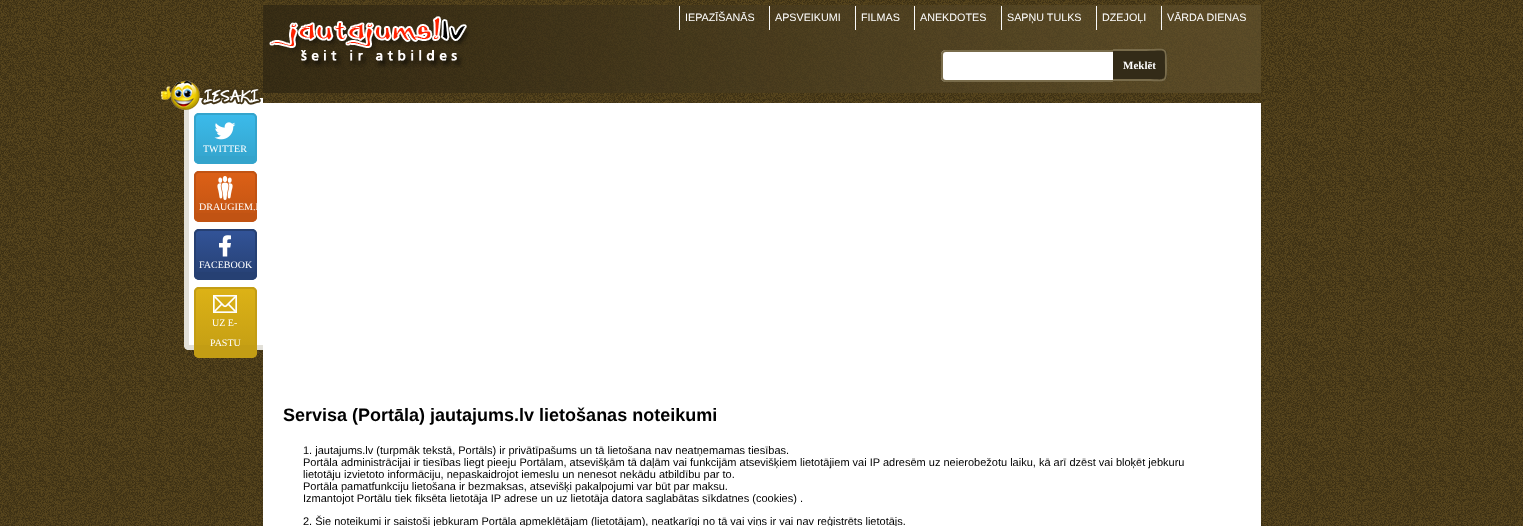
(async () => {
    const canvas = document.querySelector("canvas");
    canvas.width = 1523;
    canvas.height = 526;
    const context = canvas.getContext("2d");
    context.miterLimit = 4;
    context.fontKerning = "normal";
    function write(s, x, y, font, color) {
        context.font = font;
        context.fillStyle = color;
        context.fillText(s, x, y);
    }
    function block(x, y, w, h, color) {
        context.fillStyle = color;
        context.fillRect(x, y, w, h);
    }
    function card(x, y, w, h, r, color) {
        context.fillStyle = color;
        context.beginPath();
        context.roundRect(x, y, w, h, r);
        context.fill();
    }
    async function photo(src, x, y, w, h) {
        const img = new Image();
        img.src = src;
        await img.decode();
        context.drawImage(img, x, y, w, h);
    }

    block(0, 0, 1523, 526, "rgb(255, 255, 255)");
    await photo("media/1.png", 0, 0, 1523, 526);
    await photo("media/2.png", 263, 5, 998, 88);
    await photo("media/3.png", 269, 16, 201, 52);
    block(679, 6, 1, 24, "rgb(250, 250, 250)");
    write("IEPAZĪŠANĀS", 685, 21, "10.75px Liberation Sans", "rgb(255, 255, 255)");
    block(769, 6, 1, 24, "rgb(250, 250, 250)");
    write("APSVEIKUMI", 775, 21, "10.75px Liberation Sans", "rgb(255, 255, 255)");
    block(855, 6, 1, 24, "rgb(250, 250, 250)");
    write("FILMAS", 861, 21, "10.75px Liberation Sans", "rgb(255, 255, 255)");
    block(914, 6, 1, 24, "rgb(250, 250, 250)");
    write("ANEKDOTES", 920, 21, "10.75px Liberation Sans", "rgb(255, 255, 255)");
    block(1001, 6, 1, 24, "rgb(250, 250, 250)");
    write("SAPŅU TULKS", 1007, 21, "10.75px Liberation Sans", "rgb(255, 255, 255)");
    block(1096, 6, 1, 24, "rgb(250, 250, 250)");
    write("DZEJOĻI", 1102, 21, "10.75px Liberation Sans", "rgb(255, 255, 255)");
    block(1161, 6, 1, 24, "rgb(250, 250, 250)");
    write("VĀRDA DIENAS", 1167, 21, "10.75px Liberation Sans", "rgb(255, 255, 255)");
    context.beginPath();
    context.roundRect(941, 50, 172, 32, [5, 0, 0, 5]);
    context.fill();
    context.fillStyle = "rgb(121, 108, 75)";
    context.beginPath();
    context.moveTo(946, 50);
    context.lineTo(1113, 50);
    context.lineTo(1113, 82);
    context.lineTo(946, 82);
    context.bezierCurveTo(943, 82, 941, 80, 941, 77);
    context.lineTo(941, 55);
    context.bezierCurveTo(941, 52, 943, 50, 946, 50);
    context.closePath();
    context.moveTo(946, 52);
    context.lineTo(1113, 52);
    context.lineTo(1113, 80);
    context.lineTo(946, 80);
    context.bezierCurveTo(944, 80, 943, 79, 943, 77);
    context.lineTo(943, 55);
    context.bezierCurveTo(943, 53, 944, 52, 946, 52);
    context.closePath();
    context.fill("evenodd");
    context.fillStyle = "rgb(51, 43, 24)";
    context.beginPath();
    context.roundRect(1113, 49, 54, 32, [0, 5, 5, 0]);
    context.fill();
    context.fillStyle = "rgb(121, 108, 75)";
    context.beginPath();
    context.moveTo(1113, 49);
    context.lineTo(1146, 49);
    context.bezierCurveTo(1167, 49, 1167, 45, 1167, 65);
    context.bezierCurveTo(1167, 85, 1167, 81, 1146, 81);
    context.lineTo(1113, 81);
    context.closePath();
    context.moveTo(1113, 51);
    context.lineTo(1146, 51);
    context.bezierCurveTo(1167, 51, 1165, 47, 1165, 65);
    context.bezierCurveTo(1165, 83, 1167, 79, 1146, 79);
    context.lineTo(1113, 79);
    context.closePath();
    context.fill("evenodd");
    write("Meklēt", 1123, 69, "bold 11px Liberation Serif", "rgb(255, 255, 255)");
    block(263, 103, 998, 423, "rgb(255, 255, 255)");
    context.beginPath();
    context.roundRect(184, 98, 79, 252, [5, 0, 0, 5]);
    context.fill();
    context.fillStyle = "rgb(226, 224, 216)";
    context.beginPath();
    context.moveTo(189, 98);
    context.lineTo(263, 98);
    context.lineTo(263, 350);
    context.lineTo(189, 350);
    context.bezierCurveTo(186, 350, 184, 348, 184, 345);
    context.lineTo(184, 103);
    context.bezierCurveTo(184, 100, 186, 98, 189, 98);
    context.closePath();
    context.moveTo(189, 98);
    context.lineTo(263, 98);
    context.lineTo(263, 345);
    context.lineTo(189, 345);
    context.closePath();
    context.fill("evenodd");
    await photo("media/4.png", 161, 80, 100, 30);
    card(194, 113, 63, 51, 5, "rgb(52, 164, 204)");
    await photo("media/5.png", 196, 115, 59, 41);
    context.beginPath();
    context.roundRect(195, 114, 61, 49, 4);
    context.strokeStyle = "rgb(52, 164, 204)";
    context.lineWidth = 2;
    context.stroke();
    write("TWITTER", 203, 152, "10px Liberation Serif", "rgb(255, 255, 255)");
    card(194, 171, 63, 51, 5, "rgb(193, 83, 19)");
    await photo("media/6.png", 196, 173, 59, 40);
    context.beginPath();
    context.roundRect(195, 172, 61, 49, 4);
    context.strokeStyle = "rgb(193, 83, 19)";
    context.stroke();
    write("DRAUGIEM.L", 199, 210, "10px Liberation Serif", "rgb(255, 255, 255)");
    card(194, 229, 63, 51, 5, "rgb(38, 64, 115)");
    await photo("media/7.png", 196, 231, 59, 41);
    context.beginPath();
    context.roundRect(195, 230, 61, 49, 4);
    context.strokeStyle = "rgb(38, 64, 115)";
    context.stroke();
    write("FACEBOOK", 199, 268, "10px Liberation Serif", "rgb(255, 255, 255)");
    card(194, 287, 63, 71, 5, "rgb(195, 157, 20)");
    await photo("media/8.png", 196, 289, 59, 56);
    context.beginPath();
    context.roundRect(195, 288, 61, 69, 4);
    context.strokeStyle = "rgb(195, 157, 20)";
    context.stroke();
    write("UZ E-", 212, 326, "10px Liberation Serif", "rgb(255, 255, 255)");
    write("PASTU", 210, 346, "10px Liberation Serif", "rgb(255, 255, 255)");
    write("Servisa (Portāla) jautajums.lv lietošanas noteikumi", 283, 421, "bold 18px Liberation Sans", "rgb(0, 0, 0)");
    write("1. jautajums.lv (turpmāk tekstā, Portāls) ir privātīpašums un tā lietošana nav neatņemamas tiesības.", 303, 454, "11px Liberation Sans", "rgb(0, 0, 0)");
    write("Portāla administrācijai ir tiesības liegt pieeju Portālam, atsevišķām tā daļām vai funkcijām atsevišķiem lietotājiem vai IP adresēm uz neierobežotu laiku, kā arī dzēst vai bloķēt jebkuru", 303, 466, "11px Liberation Sans", "rgb(0, 0, 0)");
    write("lietotāju izvietoto informāciju, nepaskaidrojot iemeslu un nenesot nekādu atbildību par to.", 303, 478, "11px Liberation Sans", "rgb(0, 0, 0)");
    write("Portāla pamatfunkciju lietošana ir bezmaksas, atsevišķi pakalpojumi var būt par maksu.", 303, 490, "11px Liberation Sans", "rgb(0, 0, 0)");
    write("Izmantojot Portālu tiek fiksēta lietotāja IP adrese un uz lietotāja datora saglabātas sīkdatnes (cookies) .", 303, 502, "11px Liberation Sans", "rgb(0, 0, 0)");
    write("2. Šie noteikumi ir saistoši jebkuram Portāla apmeklētājam (lietotājam), neatkarīgi no tā vai viņs ir vai nav reģistrēts lietotājs.", 303, 525, "11px Liberation Sans", "rgb(0, 0, 0)");
})();
